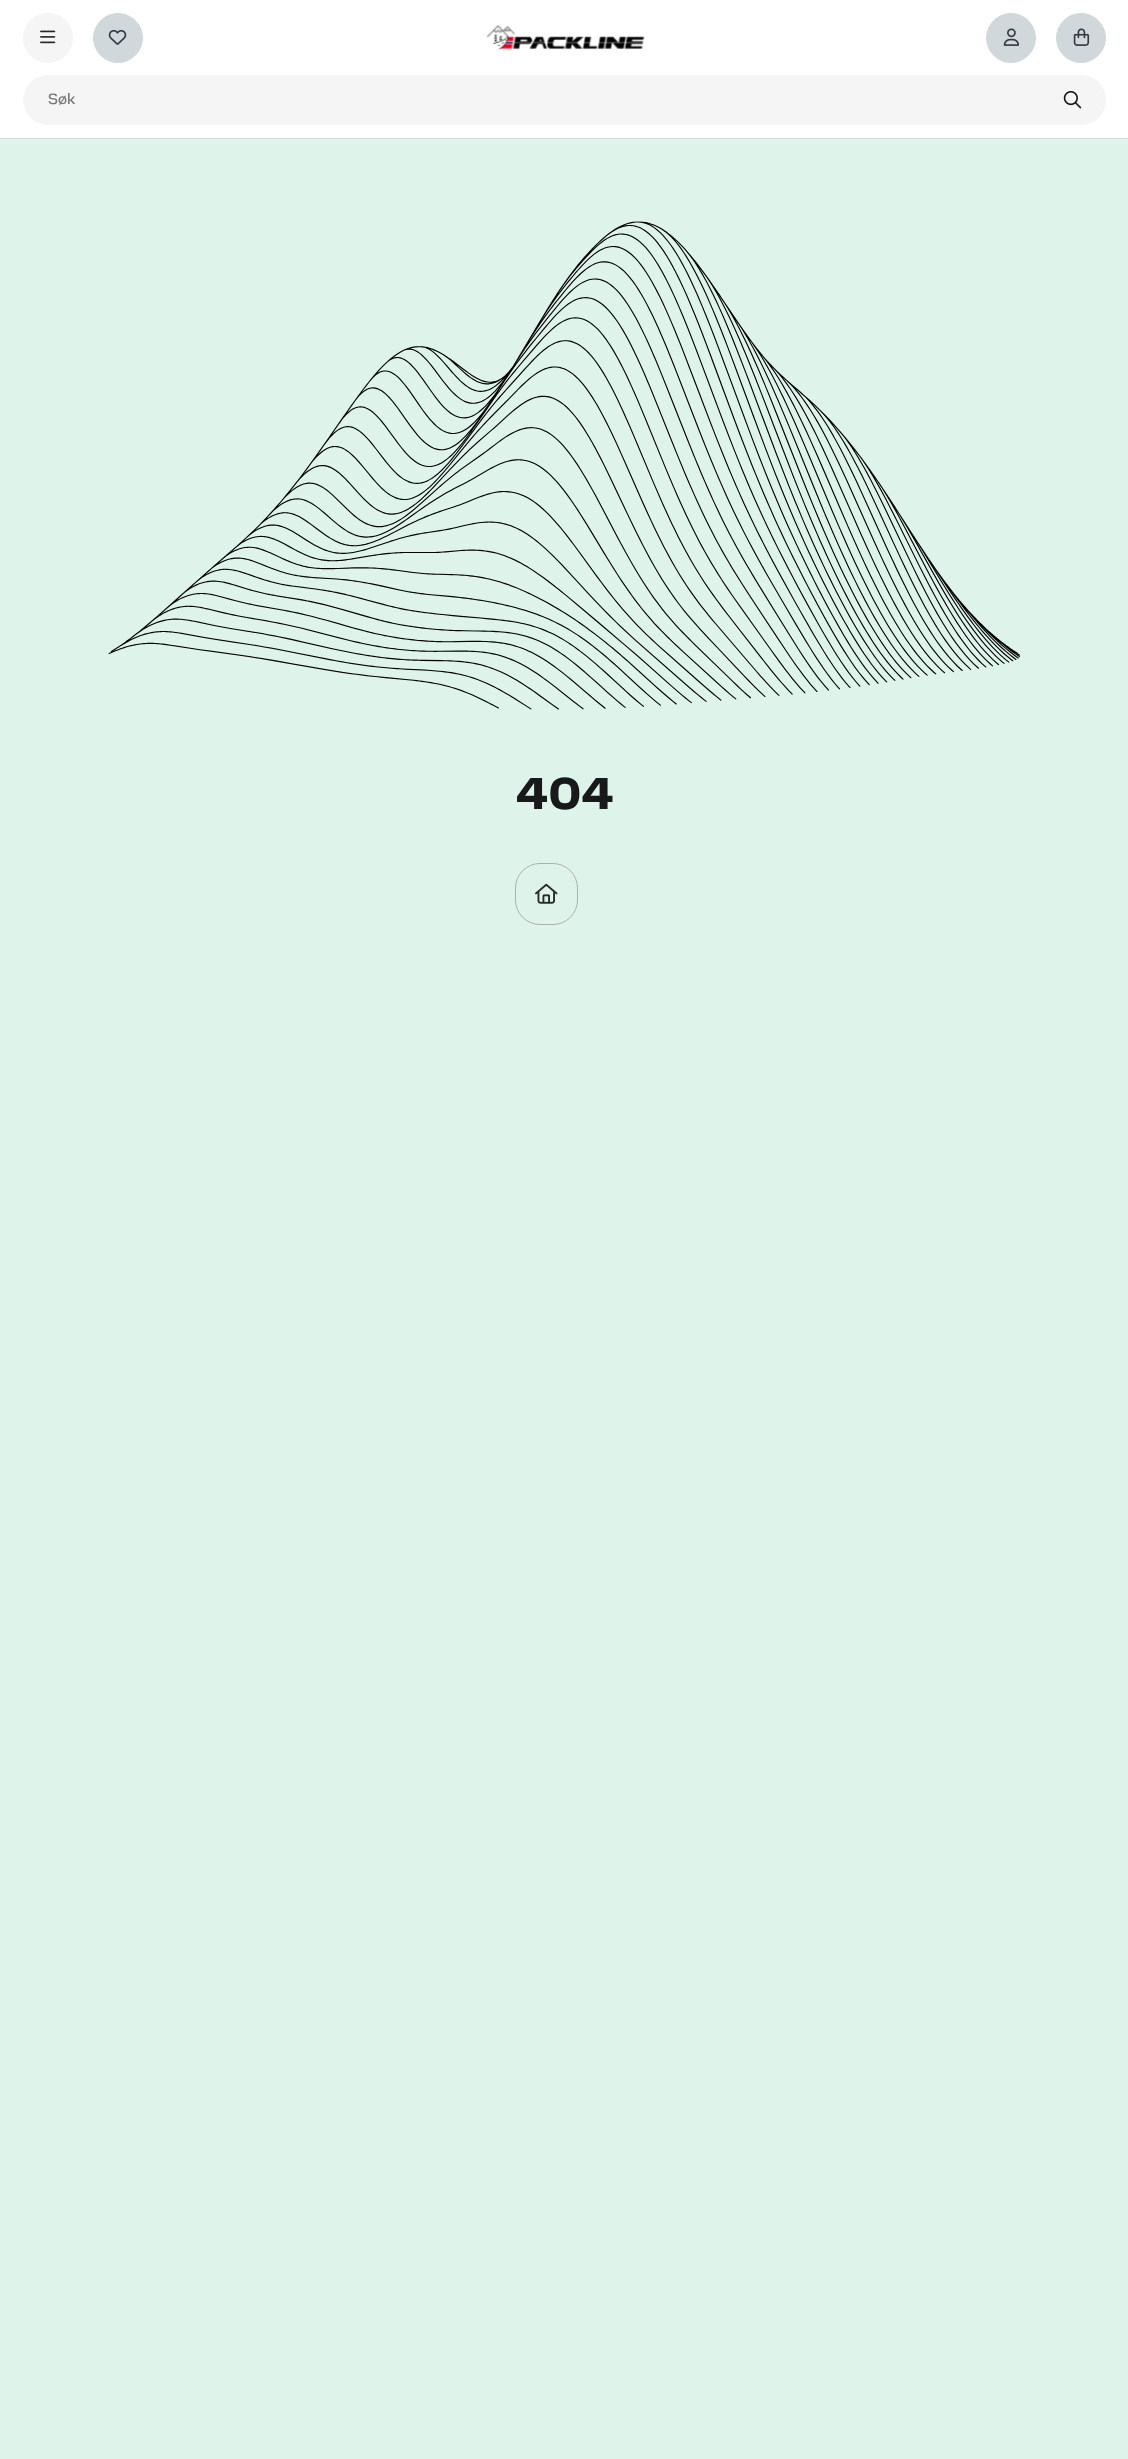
(async () => {
    const canvas = document.querySelector("canvas");
    canvas.width = 1128;
    canvas.height = 2459;
    const context = canvas.getContext("2d");
    context.miterLimit = 4;
    context.fontKerning = "normal";
    function write(s, x, y, font, color) {
        context.font = font;
        context.fillStyle = color;
        context.fillText(s, x, y);
    }
    function block(x, y, w, h, color) {
        context.fillStyle = color;
        context.fillRect(x, y, w, h);
    }
    function card(x, y, w, h, r, color) {
        context.fillStyle = color;
        context.beginPath();
        context.roundRect(x, y, w, h, r);
        context.fill();
    }
    async function photo(src, x, y, w, h) {
        const img = new Image();
        img.src = src;
        await img.decode();
        context.drawImage(img, x, y, w, h);
    }

    block(0, 0, 1128, 2459, "rgb(255, 255, 255)");
    block(0, 138, 1128, 1, "rgb(217, 217, 217)");
    context.fillStyle = "rgb(245, 245, 245)";
    context.beginPath();
    context.arc(48, 38, 24.5, 0, Math.PI * 2);
    context.fill();
    context.strokeStyle = "rgb(245, 245, 245)";
    context.stroke();
    await photo("media/1.png", 40, 30, 16, 14);
    context.fillStyle = "rgb(208, 216, 220)";
    context.beginPath();
    context.arc(118, 38, 24.5, 0, Math.PI * 2);
    context.fill();
    context.strokeStyle = "rgb(208, 216, 220)";
    context.stroke();
    await photo("media/2.png", 108, 29, 19, 16);
    await photo("media/3.png", 486, 24, 159, 26);
    context.beginPath();
    context.arc(1011, 38, 24.5, 0, Math.PI * 2);
    context.fill();
    context.stroke();
    await photo("media/4.png", 1003, 28, 16, 18);
    context.beginPath();
    context.arc(1081, 38, 24.5, 0, Math.PI * 2);
    context.fill();
    context.stroke();
    await photo("media/5.png", 1073, 28, 17, 18);
    card(23, 75, 1083, 50, 25, "rgb(245, 245, 245)");
    write("Søk", 48, 104, "15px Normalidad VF", "rgb(117, 117, 117)");
    await photo("media/6.png", 1063, 90, 19, 19);
    block(0, 139, 1128, 2320, "rgb(222, 243, 234)");
    await photo("media/7.png", 108, 221, 912, 489);
    write("404", 516, 809, "bold 45px Normalidad VF", "rgb(24, 25, 26)");
    context.beginPath();
    context.roundRect(515.5, 863.5, 62, 61, 24.5);
    context.strokeStyle = "rgb(175, 175, 175)";
    context.stroke();
    await photo("media/8.png", 535, 883, 23, 21);
})();
